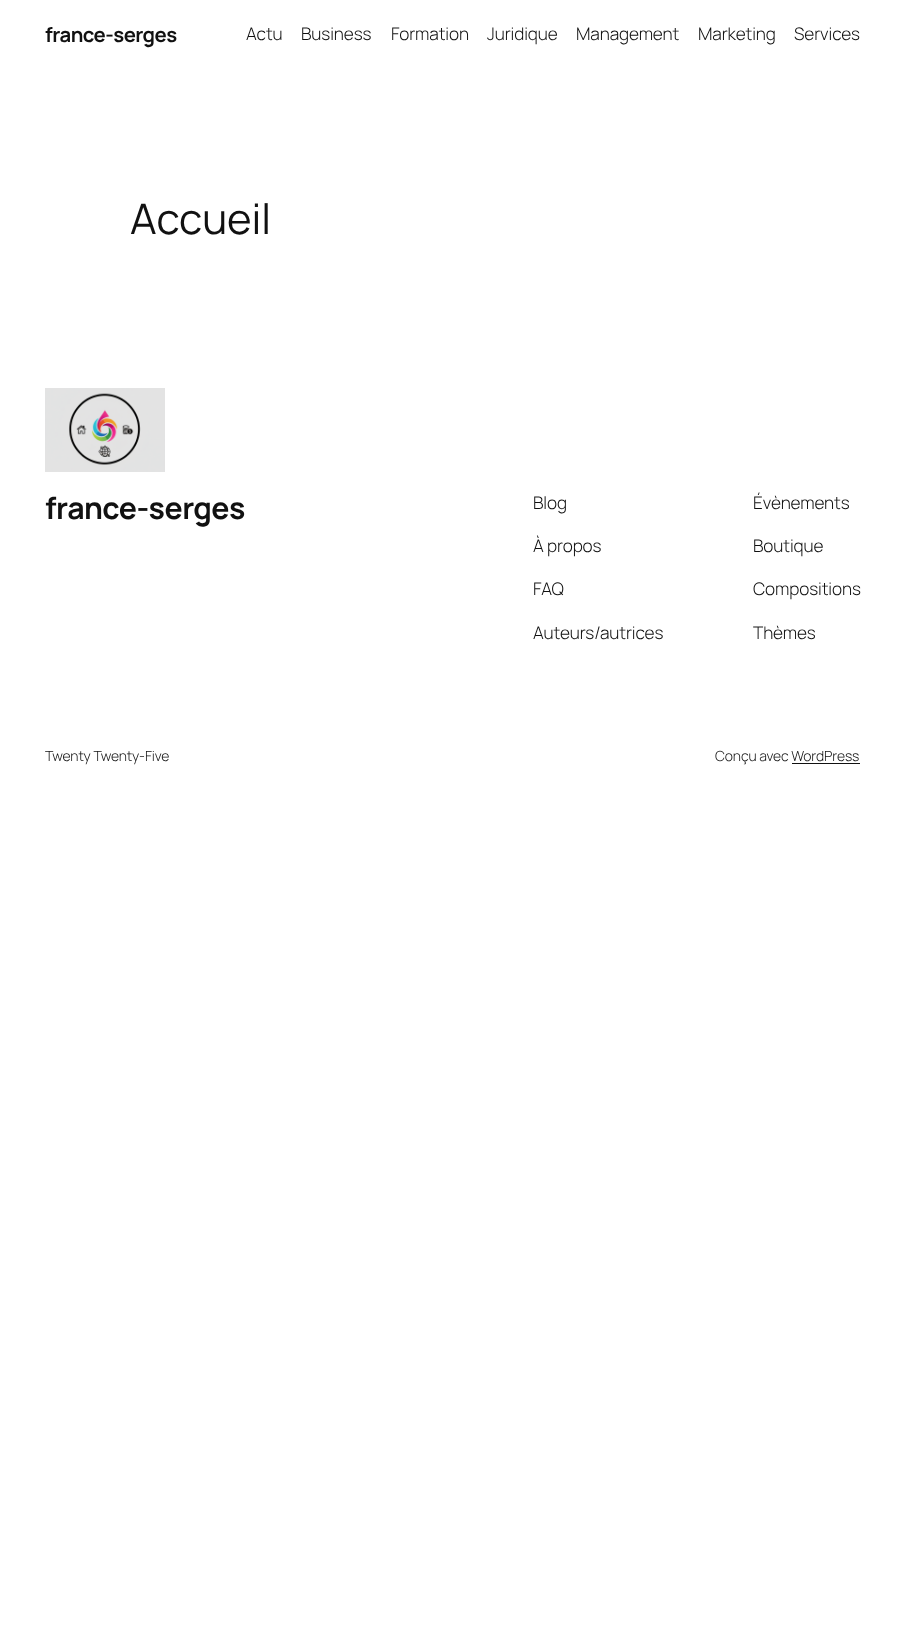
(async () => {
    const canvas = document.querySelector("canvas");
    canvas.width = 905;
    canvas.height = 1652;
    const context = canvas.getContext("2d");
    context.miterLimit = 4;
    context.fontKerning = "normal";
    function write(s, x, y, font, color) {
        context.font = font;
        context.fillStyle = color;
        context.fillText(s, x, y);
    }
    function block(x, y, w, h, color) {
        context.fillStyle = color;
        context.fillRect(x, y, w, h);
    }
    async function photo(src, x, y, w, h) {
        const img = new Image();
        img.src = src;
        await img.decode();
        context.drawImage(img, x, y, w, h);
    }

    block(0, 0, 905, 1652, "rgb(255, 255, 255)");
    context.letterSpacing = "-0.5px";
    write("france-serges", 45, 42, "bold 20.25px Manrope", "rgb(17, 17, 17)");
    context.letterSpacing = "-0.1px";
    write("Actu", 246, 40, "300 17.25px Manrope", "rgb(17, 17, 17)");
    write("Business", 301, 40, "300 17.25px Manrope", "rgb(17, 17, 17)");
    write("Formation", 391, 40, "300 17.25px Manrope", "rgb(17, 17, 17)");
    write("Juridique", 487, 40, "300 17.25px Manrope", "rgb(17, 17, 17)");
    write("Management", 576, 40, "300 17.25px Manrope", "rgb(17, 17, 17)");
    write("Marketing", 698, 40, "300 17.25px Manrope", "rgb(17, 17, 17)");
    write("Services", 794, 40, "300 17.25px Manrope", "rgb(17, 17, 17)");
    write("Accueil", 130, 234, "42px Manrope", "rgb(17, 17, 17)");
    await photo("media/1.png", 45, 388, 120, 84);
    context.letterSpacing = "-0.5px";
    write("france-serges", 45, 519, "bold 30.25px Manrope", "rgb(17, 17, 17)");
    context.letterSpacing = "-0.1px";
    write("Blog", 533, 509, "300 17.25px Manrope", "rgb(17, 17, 17)");
    write("À propos", 533, 552, "300 17.25px Manrope", "rgb(17, 17, 17)");
    write("FAQ", 533, 595, "300 17.25px Manrope", "rgb(17, 17, 17)");
    write("Auteurs/autrices", 533, 639, "300 17.25px Manrope", "rgb(17, 17, 17)");
    write("Évènements", 753, 509, "300 17.25px Manrope", "rgb(17, 17, 17)");
    write("Boutique", 753, 552, "300 17.25px Manrope", "rgb(17, 17, 17)");
    write("Compositions", 753, 595, "300 17.25px Manrope", "rgb(17, 17, 17)");
    write("Thèmes", 753, 639, "300 17.25px Manrope", "rgb(17, 17, 17)");
    write("Twenty Twenty-Five", 45, 761, "300 14px Manrope", "rgb(17, 17, 17)");
    write("Conçu avec WordPress", 715, 761, "300 14px Manrope", "rgb(17, 17, 17)");
    block(792, 763, 68, 1, "rgb(17, 17, 17)");
})();
